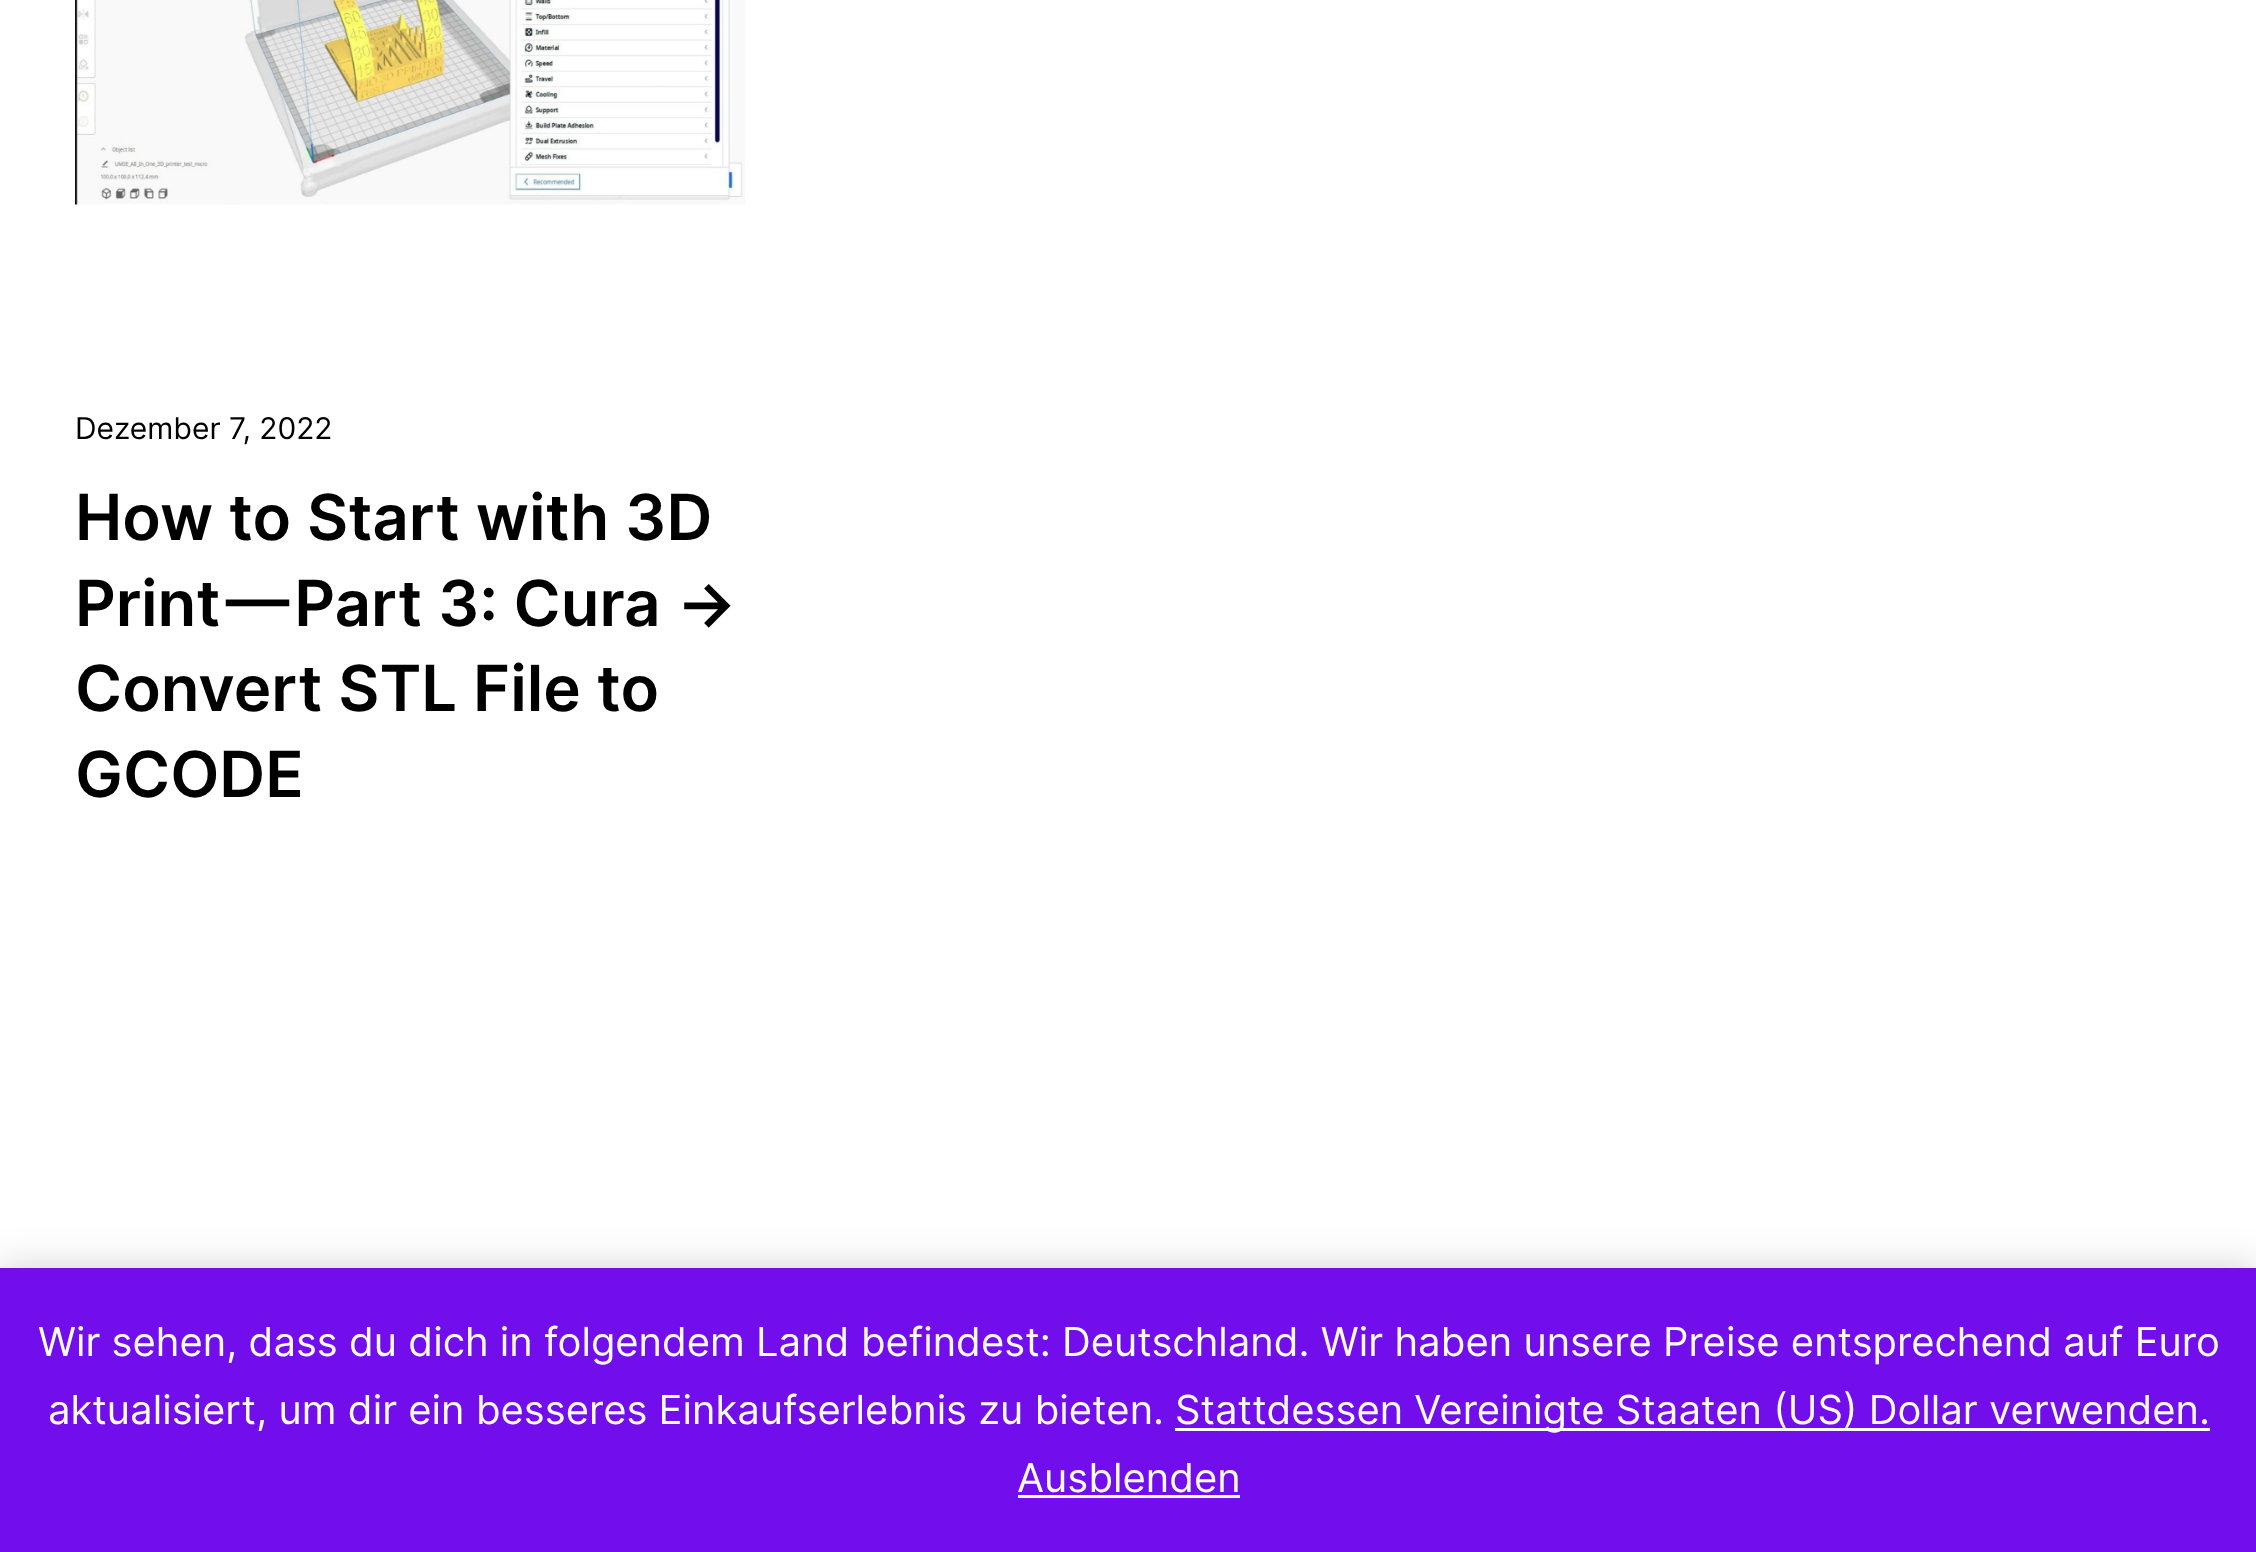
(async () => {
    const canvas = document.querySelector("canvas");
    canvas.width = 2256;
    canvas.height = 1552;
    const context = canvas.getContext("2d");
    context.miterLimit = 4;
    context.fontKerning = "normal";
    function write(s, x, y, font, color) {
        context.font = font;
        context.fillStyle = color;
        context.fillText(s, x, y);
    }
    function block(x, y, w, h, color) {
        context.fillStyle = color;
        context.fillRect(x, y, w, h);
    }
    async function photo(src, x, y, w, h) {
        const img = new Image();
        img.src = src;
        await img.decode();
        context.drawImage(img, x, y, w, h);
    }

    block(0, 0, 2256, 1552, "rgb(255, 255, 255)");
    await photo("media/1.png", 75, 0, 670, 205);
    write("Dezember 7, 2022", 75, 439, "30px Inter", "rgb(0, 0, 0)");
    write("How to Start with 3D", 75, 540, "600 63.5px Inter", "rgb(0, 0, 0)");
    write("Print — Part 3: Cura →", 75, 626, "600 63.5px Inter", "rgb(0, 0, 0)");
    write("Convert STL File to", 75, 711, "600 63.5px Inter", "rgb(0, 0, 0)");
    write("GCODE", 75, 797, "600 63.5px Inter", "rgb(0, 0, 0)");
    context.fillStyle = "rgba(0, 0, 0, 0.2)";
    context.filter = "blur(20px)";
    context.beginPath();
    context.rect(0, 1270, 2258, 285);
    context.fill();
    context.filter = "none";
    block(0, 1268, 2256, 284, "rgb(114, 14, 236)");
    write("Wir sehen, dass du dich in folgendem Land befindest: Deutschland. Wir haben unsere Preise entsprechend auf Euro", 38, 1356, "40px Inter", "rgb(252, 251, 254)");
    write("aktualisiert, um dir ein besseres Einkaufserlebnis zu bieten.", 48, 1424, "40px Inter", "rgb(252, 251, 254)");
    block(1175, 1428, 1035, 3, "rgb(252, 251, 254)");
    write("Stattdessen Vereinigte Staaten (US) Dollar verwenden.", 1175, 1424, "40px Inter", "rgb(252, 251, 254)");
    write("Ausblenden", 1017, 1492, "40px Inter", "rgb(252, 251, 254)");
    block(1018, 1495, 222, 3, "rgb(252, 251, 254)");
})();
